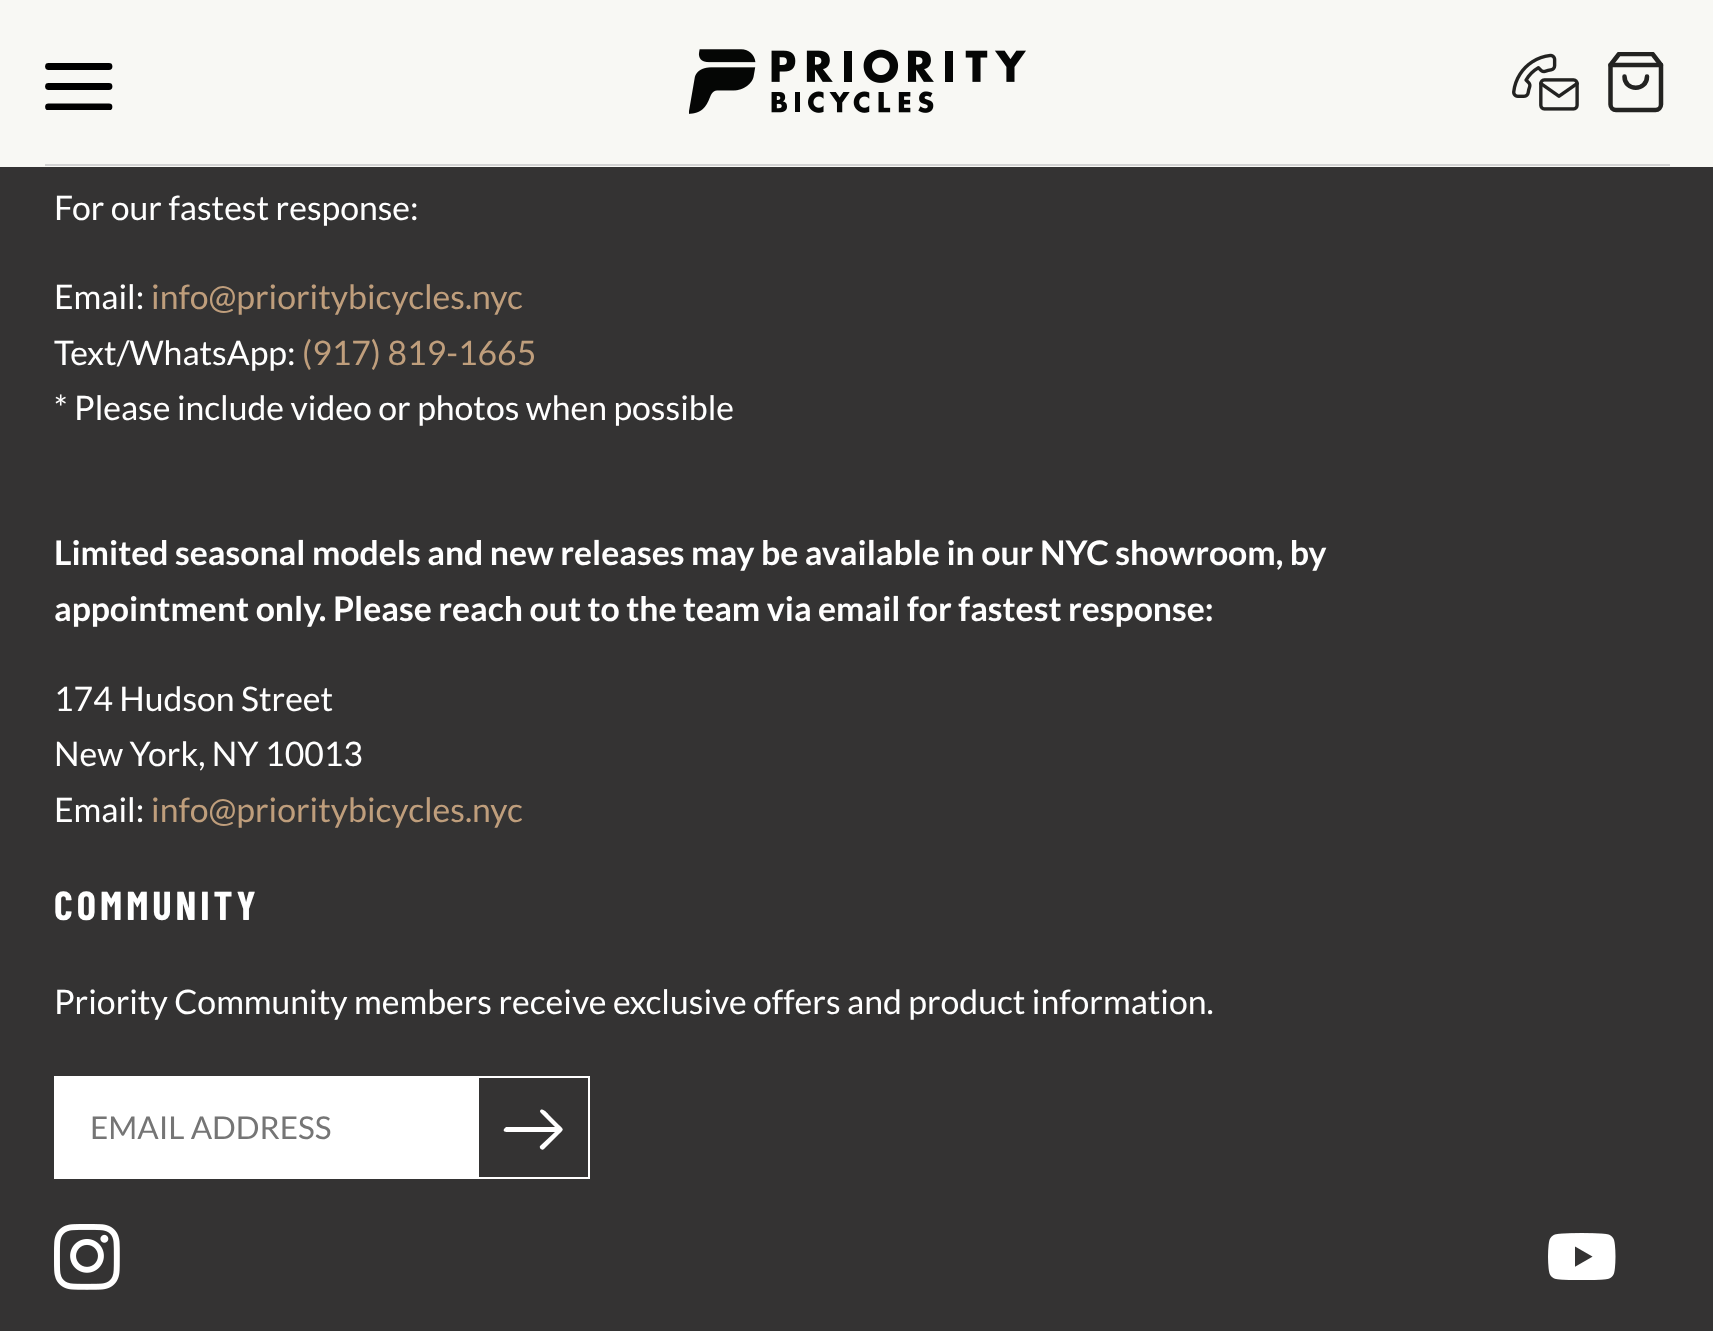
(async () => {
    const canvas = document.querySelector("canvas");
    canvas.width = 1713;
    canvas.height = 1331;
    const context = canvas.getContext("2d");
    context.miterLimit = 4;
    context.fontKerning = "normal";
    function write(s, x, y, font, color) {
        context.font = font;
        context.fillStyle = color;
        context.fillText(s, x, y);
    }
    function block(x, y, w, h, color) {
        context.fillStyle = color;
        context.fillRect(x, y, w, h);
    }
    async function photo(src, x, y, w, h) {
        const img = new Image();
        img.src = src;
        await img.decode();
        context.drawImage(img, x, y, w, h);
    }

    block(0, 0, 1713, 1331, "rgb(52, 51, 51)");
    block(0, 0, 1713, 167, "rgb(248, 248, 244)");
    block(45, 164, 1625, 2, "rgb(211, 211, 211)");
    context.beginPath();
    context.moveTo(48.5, 66.5);
    context.lineTo(109, 66.5);
    context.strokeStyle = "rgb(0, 0, 0)";
    context.lineWidth = 6.8;
    context.lineCap = "round";
    context.lineJoin = "round";
    context.stroke();
    context.beginPath();
    context.moveTo(48.5, 86.5);
    context.lineTo(109, 86.5);
    context.stroke();
    context.save();
    context.beginPath();
    context.rect(45, 63, 68, 47);
    context.clip();
    context.beginPath();
    context.moveTo(48.5, 107);
    context.lineTo(109, 107);
    context.stroke();
    context.restore();
    await photo("media/1.png", 689, 49, 337, 65);
    await photo("media/2.png", 1512, 53, 67, 58);
    context.save();
    context.beginPath();
    context.rect(1602, 52, 68, 61);
    context.clip();
    context.beginPath();
    context.moveTo(1619, 54);
    context.lineTo(1610.5, 65);
    context.lineTo(1610.5, 104.5);
    context.bezierCurveTo(1610.5, 107.5, 1613, 110, 1616, 110);
    context.lineTo(1655.5, 110);
    context.bezierCurveTo(1658.5, 110, 1661, 107.5, 1661, 104.5);
    context.lineTo(1661, 65);
    context.lineTo(1652.5, 54);
    context.closePath();
    context.strokeStyle = "rgb(35, 35, 33)";
    context.lineWidth = 4.5;
    context.stroke();
    context.restore();
    context.beginPath();
    context.moveTo(1610.5, 65);
    context.lineTo(1661, 65);
    context.moveTo(1647, 76.5);
    context.bezierCurveTo(1647, 91.5, 1624.5, 91.5, 1624.5, 76.5);
    context.strokeStyle = "rgb(35, 35, 33)";
    context.lineWidth = 4.5;
    context.stroke();
    write("For our fastest response:", 54, 220, "33.75px Lato", "rgb(255, 255, 255)");
    write("Email:", 54, 309, "33.75px Lato", "rgb(255, 255, 255)");
    write("info@prioritybicycles.nyc", 151, 309, "33.75px Lato", "rgb(191, 158, 124)");
    write("Text/WhatsApp:", 54, 365, "33.75px Lato", "rgb(255, 255, 255)");
    write("(917) 819-1665", 302, 365, "33.75px Lato", "rgb(191, 158, 124)");
    write("* Please include video or photos when possible", 54, 420, "33.75px Lato", "rgb(255, 255, 255)");
    write("Limited seasonal models and new releases may be available in our NYC showroom, by", 54, 565, "bold 33.75px Lato", "rgb(255, 255, 255)");
    write("appointment only. Please reach out to the team via email for fastest response:", 54, 621, "bold 33.75px Lato", "rgb(255, 255, 255)");
    write("174 Hudson Street", 54, 711, "33.75px Lato", "rgb(255, 255, 255)");
    write("New York, NY 10013", 54, 766, "33.75px Lato", "rgb(255, 255, 255)");
    write("Email:", 54, 822, "33.75px Lato", "rgb(255, 255, 255)");
    write("info@prioritybicycles.nyc", 151, 822, "33.75px Lato", "rgb(191, 158, 124)");
    context.letterSpacing = "4px";
    write("COMMUNITY", 54, 920, "bold 40.5px Barlow Condensed", "rgb(255, 255, 255)");
    context.letterSpacing = "0px";
    write("Priority Community members receive exclusive offers and product information.", 54, 1014, "33.75px Lato", "rgb(255, 255, 255)");
    block(54, 1076, 423, 103, "rgb(255, 255, 255)");
    write("EMAIL ADDRESS", 90, 1139, "31.5px Lato", "rgb(117, 117, 117)");
    context.strokeStyle = "rgb(255, 255, 255)";
    context.lineWidth = 2;
    context.lineJoin = "miter";
    context.strokeRect(478, 1077, 111, 101);
    context.fillStyle = "rgb(255, 255, 255)";
    context.beginPath();
    context.moveTo(540, 1111);
    context.bezierCurveTo(542, 1106, 549, 1115, 550, 1116);
    context.lineTo(559, 1125);
    context.bezierCurveTo(564, 1130, 564, 1129, 559, 1134);
    context.lineTo(544, 1149);
    context.bezierCurveTo(542, 1151, 539, 1148, 540, 1146);
    context.lineTo(555, 1132);
    context.lineTo(514, 1132);
    context.bezierCurveTo(509, 1132, 502, 1133, 504, 1129);
    context.lineTo(506, 1127);
    context.lineTo(555, 1127);
    context.lineTo(541, 1113);
    context.bezierCurveTo(540, 1112, 540, 1111, 540, 1111);
    context.closePath();
    context.fill("evenodd");
    await photo("media/3.png", 54, 1224, 66, 66);
    await photo("media/4.png", 1548, 1233, 68, 47);
})();
